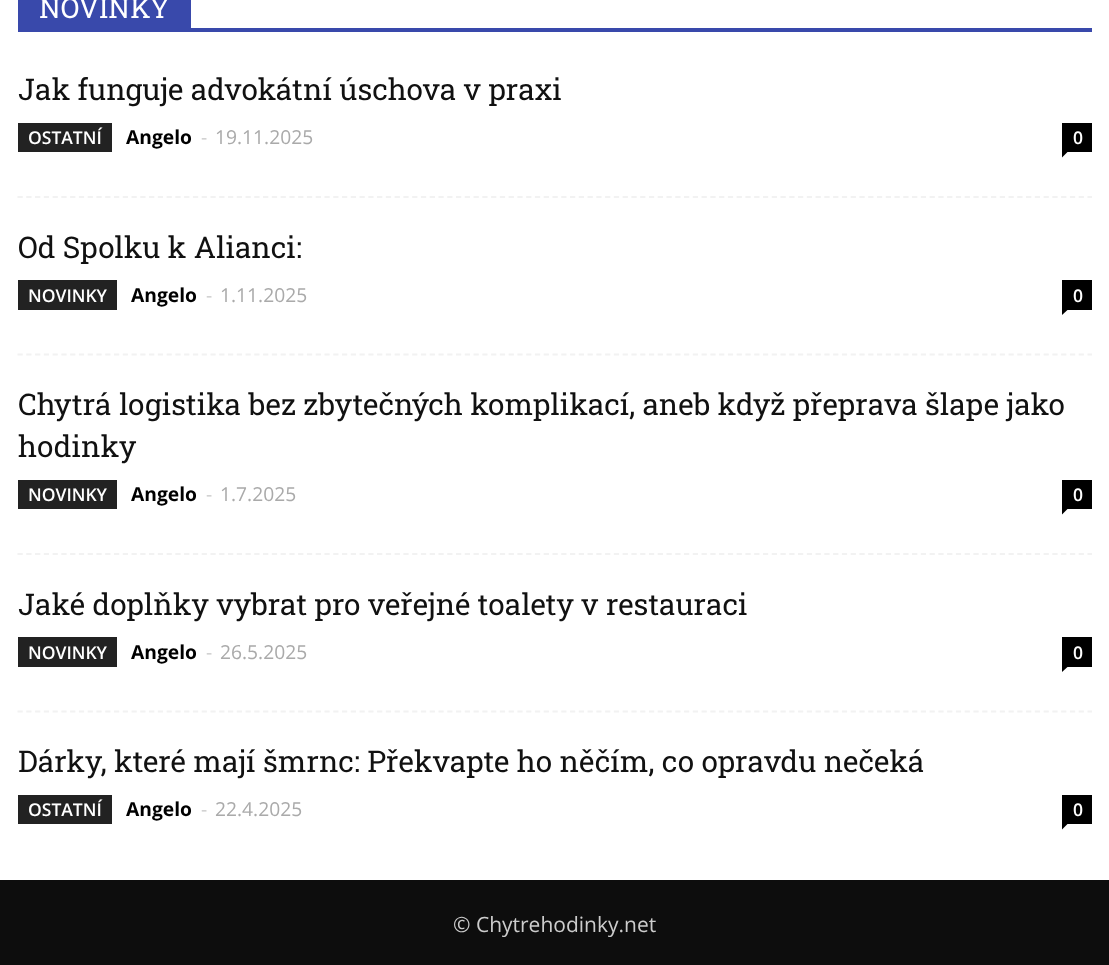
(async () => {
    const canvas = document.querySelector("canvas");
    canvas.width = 1109;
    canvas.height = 965;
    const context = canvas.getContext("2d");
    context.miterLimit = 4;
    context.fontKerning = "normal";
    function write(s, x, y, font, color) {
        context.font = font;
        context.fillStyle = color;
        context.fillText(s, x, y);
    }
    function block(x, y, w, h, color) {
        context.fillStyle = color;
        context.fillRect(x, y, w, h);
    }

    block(0, 0, 1109, 965, "rgb(255, 255, 255)");
    block(18, 28, 1074, 4, "rgb(57, 73, 171)");
    block(18, 0, 173, 28, "rgb(57, 73, 171)");
    write("NOVINKY", 39, 18, "28px Roboto Slab", "rgb(255, 255, 255)");
    context.beginPath();
    context.moveTo(17.5, 197);
    context.lineTo(1092, 197);
    context.strokeStyle = "rgb(242, 242, 242)";
    context.lineWidth = 1.8;
    context.setLineDash([5.25, 3.52]);
    context.stroke();
    write("Jak funguje advokátní úschova v praxi", 18, 100, "29.75px Roboto Slab", "rgb(17, 17, 17)");
    block(18, 123, 94, 29, "rgb(34, 34, 34)");
    write("OSTATNÍ", 28, 144, "600 17.5px Open Sans", "rgb(255, 255, 255)");
    write("Angelo", 126, 144, "bold 19.25px Open Sans", "rgb(0, 0, 0)");
    write("-", 201, 144, "19.25px Open Sans", "rgb(204, 204, 204)");
    write("19.11.2025", 215, 144, "19.25px Open Sans", "rgb(170, 170, 170)");
    block(1062, 123, 30, 29, "rgb(0, 0, 0)");
    write("0", 1073, 144, "600 17.5px Open Sans", "rgb(255, 255, 255)");
    context.fillStyle = "rgb(0, 0, 0)";
    context.beginPath();
    context.moveTo(1062, 152);
    context.lineTo(1067.5, 152);
    context.lineTo(1062, 157.5);
    context.closePath();
    context.fill();
    context.beginPath();
    context.moveTo(17.5, 354.5);
    context.lineTo(1092, 354.5);
    context.stroke();
    write("Od Spolku k Alianci:", 18, 258, "29.75px Roboto Slab", "rgb(17, 17, 17)");
    block(18, 280, 99, 30, "rgb(34, 34, 34)");
    write("NOVINKY", 28, 302, "600 17.5px Open Sans", "rgb(255, 255, 255)");
    write("Angelo", 131, 302, "bold 19.25px Open Sans", "rgb(0, 0, 0)");
    write("-", 206, 302, "19.25px Open Sans", "rgb(204, 204, 204)");
    write("1.11.2025", 220, 302, "19.25px Open Sans", "rgb(170, 170, 170)");
    block(1062, 280, 30, 30, "rgb(0, 0, 0)");
    write("0", 1073, 302, "600 17.5px Open Sans", "rgb(255, 255, 255)");
    context.fillStyle = "rgb(0, 0, 0)";
    context.beginPath();
    context.moveTo(1062, 310);
    context.lineTo(1067.5, 310);
    context.lineTo(1062, 315);
    context.closePath();
    context.fill();
    context.beginPath();
    context.moveTo(17.5, 554);
    context.lineTo(1092, 554);
    context.stroke();
    write("Chytrá logistika bez zbytečných komplikací, aneb když přeprava šlape jako", 18, 415, "29.75px Roboto Slab", "rgb(17, 17, 17)");
    write("hodinky", 18, 457, "29.75px Roboto Slab", "rgb(17, 17, 17)");
    block(18, 480, 99, 29, "rgb(34, 34, 34)");
    write("NOVINKY", 28, 501, "600 17.5px Open Sans", "rgb(255, 255, 255)");
    write("Angelo", 131, 501, "bold 19.25px Open Sans", "rgb(0, 0, 0)");
    write("-", 206, 501, "19.25px Open Sans", "rgb(204, 204, 204)");
    write("1.7.2025", 220, 501, "19.25px Open Sans", "rgb(170, 170, 170)");
    block(1062, 480, 30, 29, "rgb(0, 0, 0)");
    write("0", 1073, 501, "600 17.5px Open Sans", "rgb(255, 255, 255)");
    context.fillStyle = "rgb(0, 0, 0)";
    context.beginPath();
    context.moveTo(1062, 509);
    context.lineTo(1067.5, 509);
    context.lineTo(1062, 514.5);
    context.closePath();
    context.fill();
    context.beginPath();
    context.moveTo(17.5, 711.5);
    context.lineTo(1092, 711.5);
    context.stroke();
    write("Jaké doplňky vybrat pro veřejné toalety v restauraci", 18, 615, "29.75px Roboto Slab", "rgb(17, 17, 17)");
    block(18, 637, 99, 30, "rgb(34, 34, 34)");
    write("NOVINKY", 28, 659, "600 17.5px Open Sans", "rgb(255, 255, 255)");
    write("Angelo", 131, 659, "bold 19.25px Open Sans", "rgb(0, 0, 0)");
    write("-", 206, 659, "19.25px Open Sans", "rgb(204, 204, 204)");
    write("26.5.2025", 220, 659, "19.25px Open Sans", "rgb(170, 170, 170)");
    block(1062, 637, 30, 30, "rgb(0, 0, 0)");
    write("0", 1073, 659, "600 17.5px Open Sans", "rgb(255, 255, 255)");
    context.fillStyle = "rgb(0, 0, 0)";
    context.beginPath();
    context.moveTo(1062, 667);
    context.lineTo(1067.5, 667);
    context.lineTo(1062, 672);
    context.closePath();
    context.fill();
    write("Dárky, které mají šmrnc: Překvapte ho něčím, co opravdu nečeká", 18, 772, "29.75px Roboto Slab", "rgb(17, 17, 17)");
    block(18, 795, 94, 29, "rgb(34, 34, 34)");
    write("OSTATNÍ", 28, 816, "600 17.5px Open Sans", "rgb(255, 255, 255)");
    write("Angelo", 126, 816, "bold 19.25px Open Sans", "rgb(0, 0, 0)");
    write("-", 201, 816, "19.25px Open Sans", "rgb(204, 204, 204)");
    write("22.4.2025", 215, 816, "19.25px Open Sans", "rgb(170, 170, 170)");
    block(1062, 795, 30, 29, "rgb(0, 0, 0)");
    write("0", 1073, 816, "600 17.5px Open Sans", "rgb(255, 255, 255)");
    context.fillStyle = "rgb(0, 0, 0)";
    context.beginPath();
    context.moveTo(1062, 824);
    context.lineTo(1067.5, 824);
    context.lineTo(1062, 829.5);
    context.closePath();
    context.fill();
    block(0, 880, 1109, 85, "rgb(13, 13, 13)");
    write("© Chytrehodinky.net", 453, 932, "21px Open Sans", "rgb(204, 204, 204)");
})();
